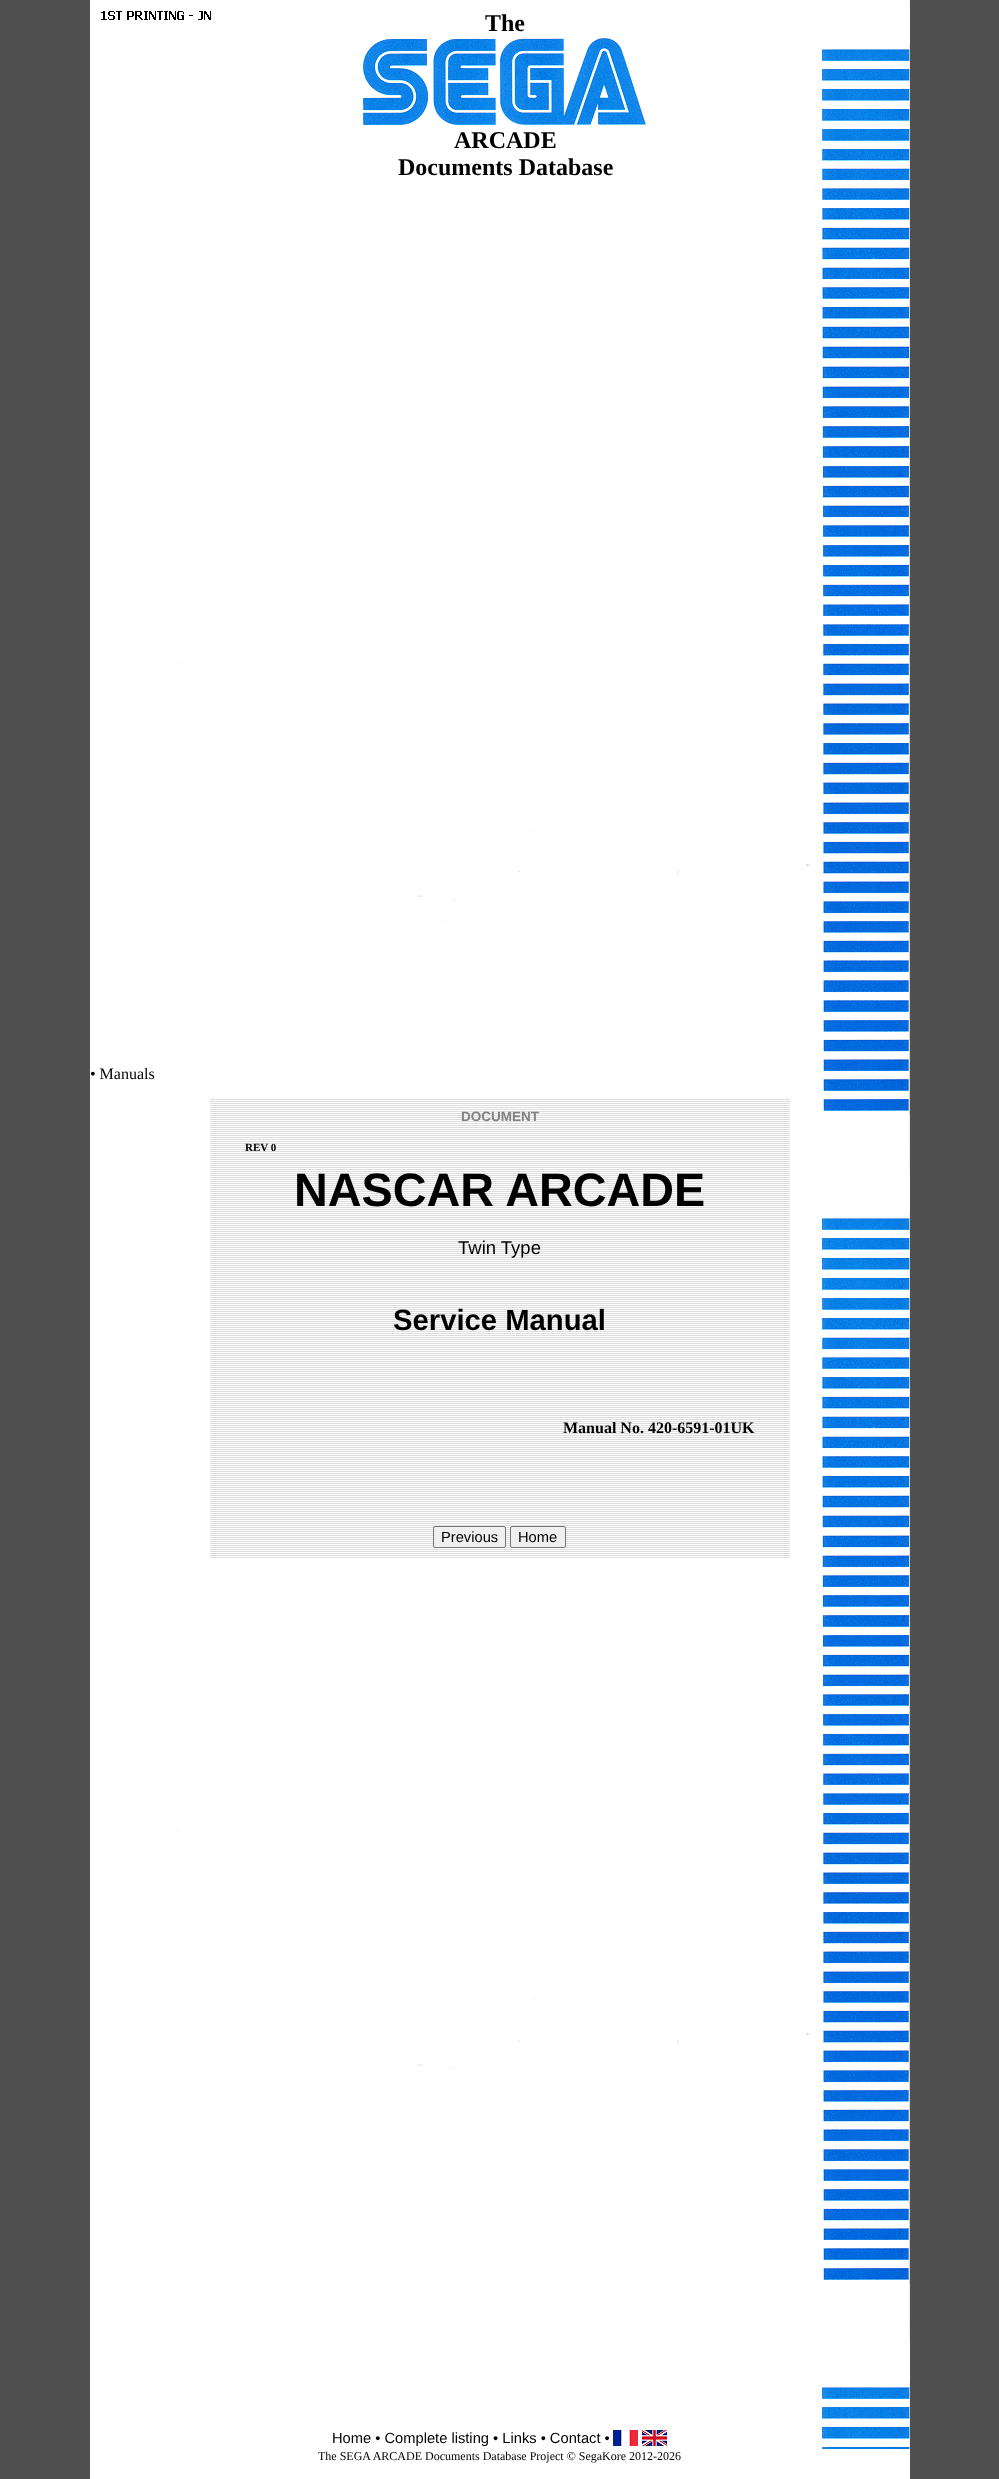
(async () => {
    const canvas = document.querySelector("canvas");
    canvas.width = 999;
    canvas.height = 2479;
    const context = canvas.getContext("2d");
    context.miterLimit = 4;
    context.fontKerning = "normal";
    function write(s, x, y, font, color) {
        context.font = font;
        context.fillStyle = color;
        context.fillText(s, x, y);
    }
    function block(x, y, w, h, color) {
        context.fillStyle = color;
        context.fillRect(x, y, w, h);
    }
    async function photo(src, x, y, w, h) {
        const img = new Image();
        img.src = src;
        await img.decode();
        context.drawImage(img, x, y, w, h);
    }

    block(0, 0, 999, 2479, "rgb(80, 80, 80)");
    block(90, 0, 27, 2449, "rgb(255, 255, 255)");
    await photo("media/1.png", 117, 0, 793, 2449);
    await photo("media/2.png", 101, 11, 110, 9);
    write("The", 485, 31, "bold 24px Liberation Serif", "rgb(0, 0, 0)");
    await photo("media/3.png", 363, 38, 283, 87);
    write("ARCADE", 454, 148, "bold 24px Liberation Serif", "rgb(0, 0, 0)");
    write("Documents Database", 398, 175, "bold 24px Liberation Serif", "rgb(0, 0, 0)");
    write("• Manuals", 90, 1079, "16px Liberation Serif", "rgb(0, 0, 0)");
    await photo("media/4.png", 210, 1099, 580, 459);
    write("DOCUMENT", 461, 1121, "bold 13.5px Liberation Sans", "rgb(128, 128, 128)");
    write("REV 0", 245, 1151, "bold 11px Liberation Serif", "rgb(0, 0, 0)");
    write("NASCAR ARCADE", 294, 1206, "bold 46.75px Liberation Sans", "rgb(0, 0, 0)");
    write("Twin Type", 458, 1254, "18.5px Liberation Sans", "rgb(0, 0, 0)");
    write("Service Manual", 393, 1330, "bold 29.25px Liberation Sans", "rgb(0, 0, 0)");
    write("Manual No. 420-6591-01UK", 563, 1433, "bold 16px Liberation Serif", "rgb(0, 0, 0)");
    context.fillStyle = "rgb(239, 239, 239)";
    context.beginPath();
    context.roundRect(433.5, 1526.5, 72, 21, 1.5);
    context.fill();
    context.strokeStyle = "rgb(118, 118, 118)";
    context.stroke();
    write("Previous", 441, 1542, "14.7px Liberation Sans", "rgb(0, 0, 0)");
    context.fillStyle = "rgb(239, 239, 239)";
    context.beginPath();
    context.roundRect(510.5, 1526.5, 55, 21, 1.5);
    context.fill();
    context.stroke();
    write("Home", 518, 1542, "14.7px Liberation Sans", "rgb(0, 0, 0)");
    write("Home • Complete listing • Links • Contact •", 332, 2443, "14.7px Liberation Sans", "rgb(0, 0, 0)");
    await photo("media/5.png", 613, 2430, 25, 16);
    await photo("media/6.png", 642, 2430, 25, 16);
    block(90, 2449, 820, 30, "rgb(255, 255, 255)");
    write("The SEGA ARCADE Documents Database Project © SegaKore 2012-2026", 318, 2460, "12px Liberation Serif", "rgb(0, 0, 0)");
})();
